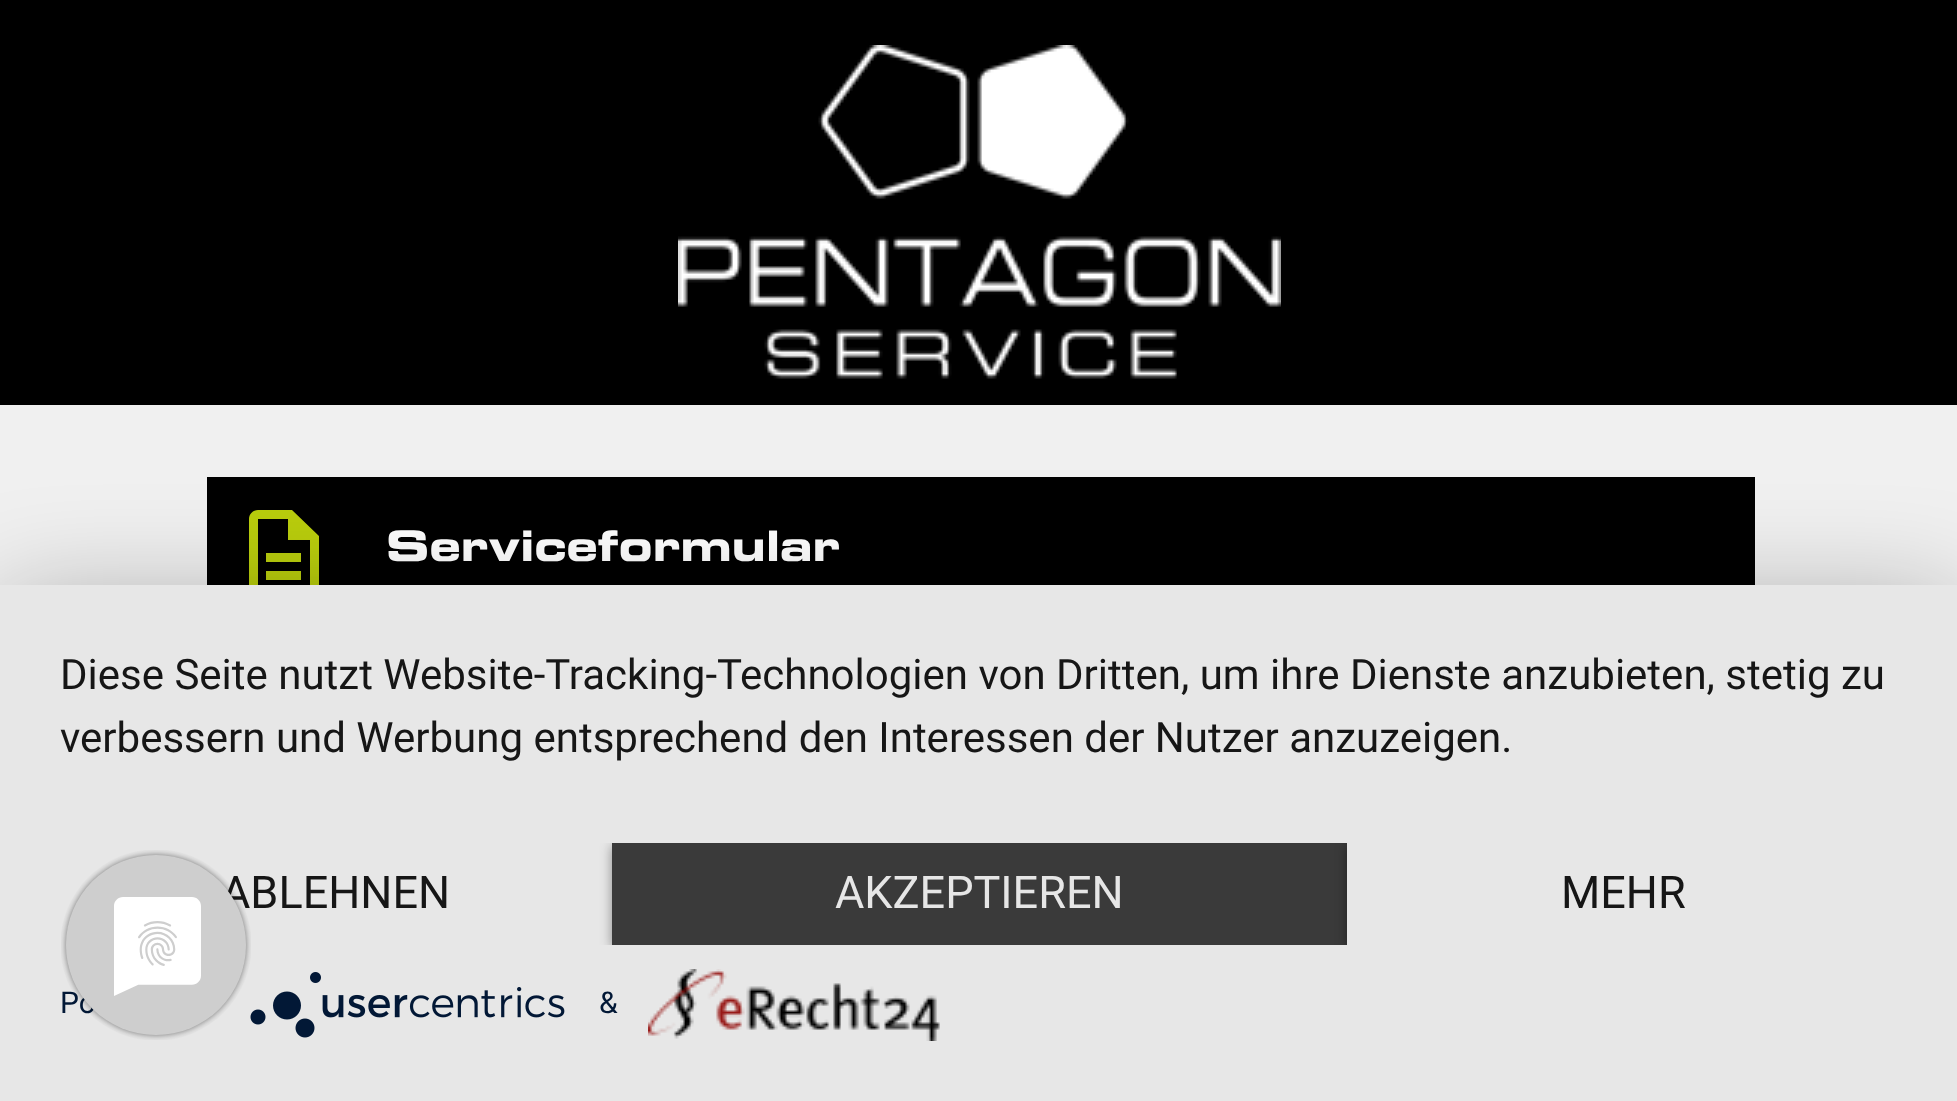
(async () => {
    const canvas = document.querySelector("canvas");
    canvas.width = 1957;
    canvas.height = 1101;
    const context = canvas.getContext("2d");
    context.miterLimit = 4;
    context.fontKerning = "normal";
    function write(s, x, y, font, color) {
        context.font = font;
        context.fillStyle = color;
        context.fillText(s, x, y);
    }
    function block(x, y, w, h, color) {
        context.fillStyle = color;
        context.fillRect(x, y, w, h);
    }
    async function photo(src, x, y, w, h) {
        const img = new Image();
        img.src = src;
        await img.decode();
        context.drawImage(img, x, y, w, h);
    }

    block(0, 0, 1957, 1101, "rgb(0, 0, 0)");
    await photo("media/1.png", 678, 45, 603, 334);
    block(0, 405, 1957, 180, "rgb(240, 240, 240)");
    block(207, 477, 1548, 108, "rgb(0, 0, 0)");
    context.fillStyle = "rgb(186, 206, 13)";
    context.beginPath();
    context.moveTo(266, 571);
    context.lineTo(301, 571);
    context.lineTo(301, 580);
    context.lineTo(266, 580);
    context.closePath();
    context.moveTo(266, 553);
    context.lineTo(301, 553);
    context.lineTo(301, 562);
    context.lineTo(266, 562);
    context.closePath();
    context.moveTo(292, 510);
    context.lineTo(258, 510);
    context.bezierCurveTo(253, 510, 249, 514, 249, 519);
    context.lineTo(249, 588);
    context.bezierCurveTo(249, 591, 250, 593, 252, 594);
    context.bezierCurveTo(253, 596, 255, 597, 258, 597);
    context.lineTo(310, 597);
    context.bezierCurveTo(315, 597, 319, 593, 319, 588);
    context.lineTo(319, 536);
    context.closePath();
    context.moveTo(310, 588);
    context.lineTo(258, 588);
    context.lineTo(258, 519);
    context.lineTo(288, 519);
    context.lineTo(288, 540);
    context.lineTo(310, 540);
    context.closePath();
    context.fill();
    write("Serviceformular", 386, 561, "bold 42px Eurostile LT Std", "rgb(255, 255, 255)");
    context.fillStyle = "rgba(0, 0, 0, 0.3)";
    context.filter = "blur(54px)";
    context.beginPath();
    context.rect(0, 603, 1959, 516);
    context.fill();
    context.filter = "none";
    block(0, 585, 1957, 516, "rgb(231, 231, 231)");
    write("Diese Seite nutzt Website-Tracking-Technologien von Dritten, um ihre Dienste anzubieten, stetig zu", 60, 689, "42px Roboto", "rgb(22, 22, 22)");
    write("verbessern und Werbung entsprechend den Interessen der Nutzer anzuzeigen.", 60, 752, "42px Roboto", "rgb(22, 22, 22)");
    write("ABLEHNEN", 221, 908, "45px Roboto", "rgb(22, 22, 22)");
    context.save();
    context.beginPath();
    context.rect(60, 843, 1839, 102);
    context.clip();
    context.fillStyle = "rgba(0, 0, 0, 0.4)";
    context.filter = "blur(6px)";
    context.beginPath();
    context.rect(612, 846, 735, 102);
    context.fill();
    context.filter = "none";
    context.restore();
    block(612, 843, 735, 102, "rgb(58, 58, 58)");
    write("AKZEPTIEREN", 835, 908, "45px Roboto", "rgb(230, 230, 230)");
    context.save();
    context.beginPath();
    context.rect(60, 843, 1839, 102);
    context.clip();
    context.fillStyle = "rgba(0, 0, 0, 0.4)";
    context.filter = "blur(6px)";
    context.beginPath();
    context.rect(1347, 846, 552, 102);
    context.fill();
    context.filter = "none";
    context.restore();
    block(1347, 843, 552, 102, "rgb(231, 231, 231)");
    write("MEHR", 1561, 908, "45px Roboto", "rgb(22, 22, 22)");
    write("Po", 60, 1013, "30px Roboto", "rgb(2, 24, 54)");
    await photo("media/2.png", 250, 972, 315, 66);
    write("&", 599, 1013, "30px Roboto", "rgb(2, 24, 54)");
    await photo("media/3.png", 648, 969, 292, 72);
    await photo("media/4.png", 61, 850, 190, 190);
})();
